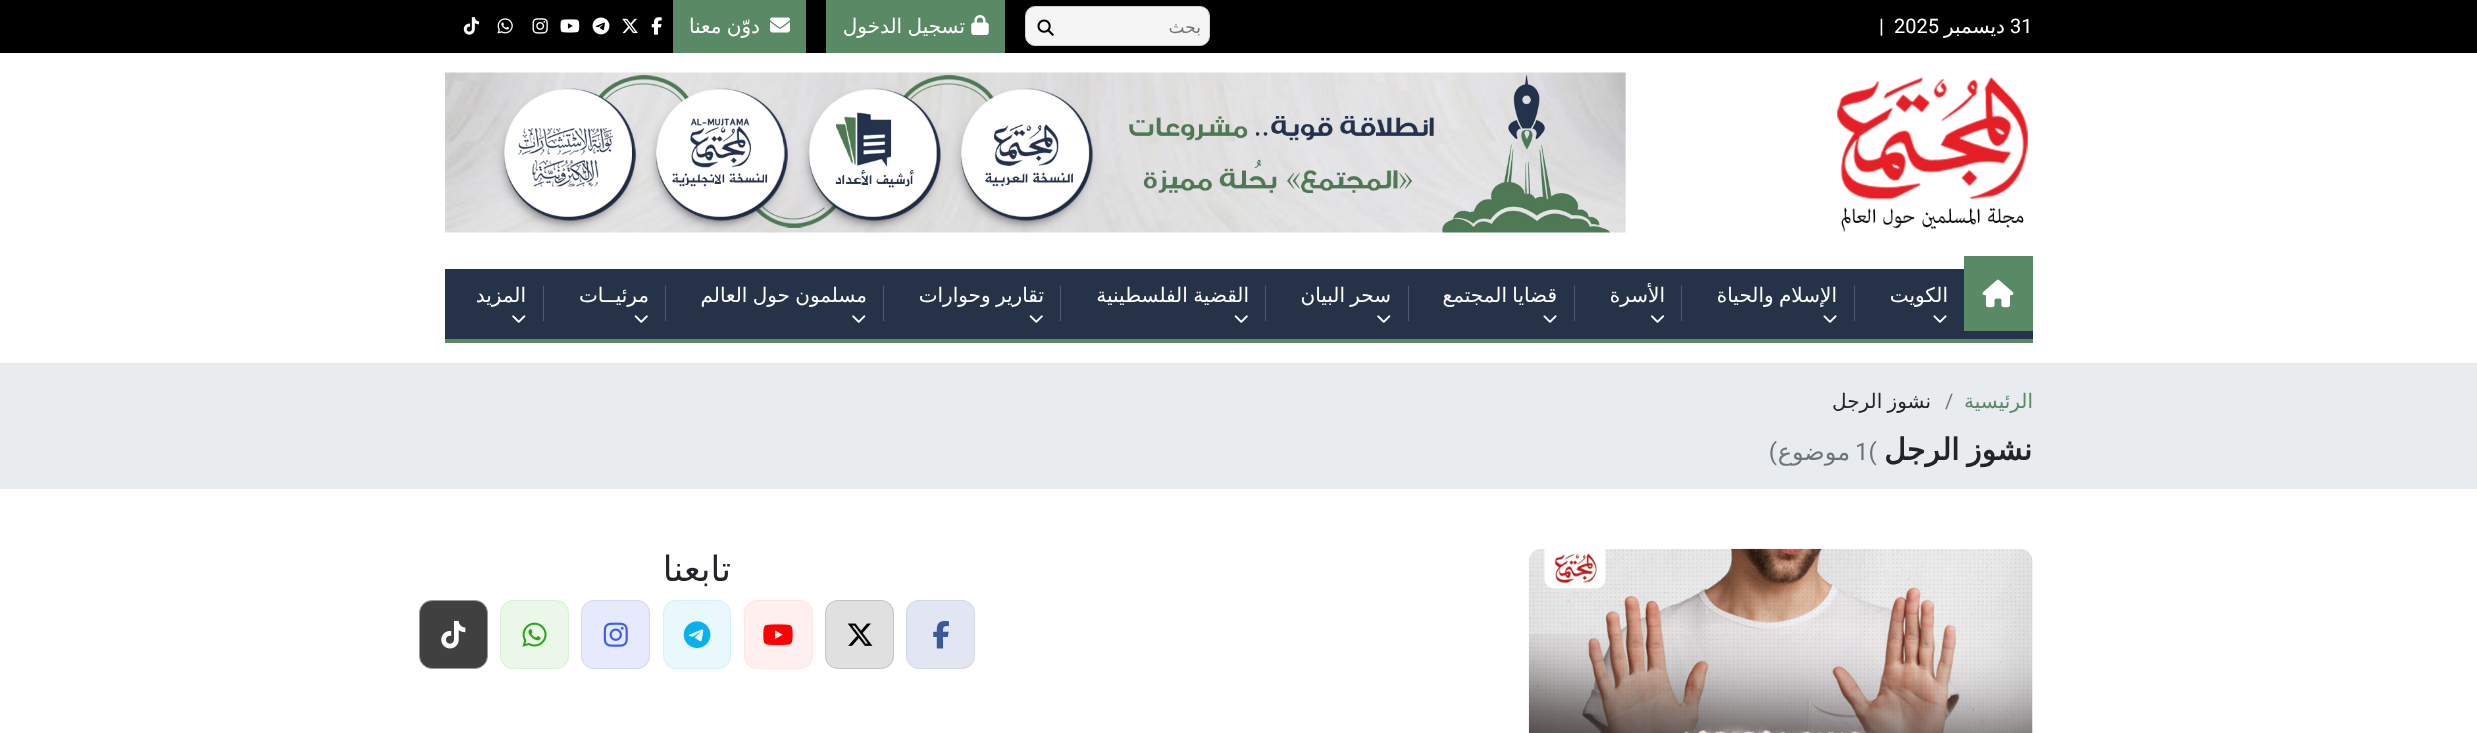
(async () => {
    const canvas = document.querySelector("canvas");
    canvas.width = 2477;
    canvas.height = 733;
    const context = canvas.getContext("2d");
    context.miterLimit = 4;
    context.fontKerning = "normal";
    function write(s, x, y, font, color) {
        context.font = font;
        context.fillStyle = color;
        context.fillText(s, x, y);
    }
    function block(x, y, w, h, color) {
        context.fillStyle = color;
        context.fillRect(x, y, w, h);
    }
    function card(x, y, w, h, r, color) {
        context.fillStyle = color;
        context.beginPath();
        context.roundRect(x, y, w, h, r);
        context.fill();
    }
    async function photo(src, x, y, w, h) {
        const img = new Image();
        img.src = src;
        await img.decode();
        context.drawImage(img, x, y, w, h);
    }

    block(0, 0, 2477, 733, "rgb(255, 255, 255)");
    block(0, 0, 2477, 53, "rgb(0, 0, 0)");
    write("31", 2010, 33, "20px Roboto", "rgb(255, 255, 255)");
    context.direction = "rtl";
    write("ديسمبر", 2005, 33, "20px DejaVu Sans", "rgb(255, 255, 255)");
    context.direction = "ltr";
    write("2025", 1894, 33, "20px Roboto", "rgb(255, 255, 255)");
    write("|", 1879, 33, "20px Roboto", "rgb(255, 255, 255)");
    context.fillStyle = "rgb(245, 245, 245)";
    context.beginPath();
    context.roundRect(1025.5, 6.5, 184, 39, 9.5);
    context.fill();
    context.strokeStyle = "rgb(206, 212, 218)";
    context.stroke();
    context.direction = "rtl";
    write("بحث", 1201, 33, "17px DejaVu Sans", "rgb(108, 117, 125)");
    await photo("media/1.png", 1037, 19, 17, 17);
    block(826, 0, 179, 53, "rgb(90, 137, 102)");
    await photo("media/2.png", 971, 15, 18, 20);
    context.wordSpacing = "-1px";
    write("تسجيل الدخول", 965, 33, "20px DejaVu Sans", "rgb(255, 255, 255)");
    block(673, 0, 133, 53, "rgb(90, 137, 102)");
    await photo("media/3.png", 770, 17, 20, 16);
    write("دوّن معنا", 760, 33, "20px DejaVu Sans", "rgb(255, 255, 255)");
    await photo("media/4.png", 651, 17, 11, 18);
    await photo("media/5.png", 622, 18, 16, 16);
    await photo("media/6.png", 592, 17, 18, 18);
    await photo("media/7.png", 560, 19, 20, 14);
    await photo("media/8.png", 532, 18, 16, 16);
    await photo("media/9.png", 497, 18, 16, 16);
    await photo("media/10.png", 463, 17, 17, 18);
    await photo("media/11.png", 1837, 76, 191, 157);
    await photo("media/12.png", 445, 72, 1181, 161);
    block(445, 269, 1588, 70, "rgb(38, 50, 72)");
    block(445, 339, 1588, 4, "rgb(90, 137, 102)");
    block(1964, 256, 69, 75, "rgb(90, 137, 102)");
    await photo("media/13.png", 1982, 279, 32, 29);
    context.wordSpacing = "0px";
    write("الكويت", 1948, 302, "20px DejaVu Sans", "rgb(255, 255, 255)");
    block(1854, 286, 1, 35, "rgb(81, 91, 109)");
    await photo("media/14.png", 1933, 315, 14, 8);
    context.wordSpacing = "-1px";
    write("الإسلام والحياة", 1837, 302, "20px DejaVu Sans", "rgb(255, 255, 255)");
    block(1681, 286, 1, 35, "rgb(81, 91, 109)");
    await photo("media/14.png", 1823, 315, 14, 8);
    context.wordSpacing = "0px";
    write("الأسرة", 1665, 302, "20px DejaVu Sans", "rgb(255, 255, 255)");
    block(1574, 286, 1, 35, "rgb(81, 91, 109)");
    await photo("media/15.png", 1651, 315, 13, 8);
    context.wordSpacing = "-1px";
    write("قضايا المجتمع", 1557, 302, "20px DejaVu Sans", "rgb(255, 255, 255)");
    block(1408, 286, 1, 35, "rgb(81, 91, 109)");
    await photo("media/14.png", 1543, 315, 14, 8);
    write("سحر البيان", 1391, 302, "20px DejaVu Sans", "rgb(255, 255, 255)");
    block(1265, 286, 1, 35, "rgb(81, 91, 109)");
    await photo("media/16.png", 1377, 315, 14, 8);
    write("القضية الفلسطينية", 1249, 302, "20px DejaVu Sans", "rgb(255, 255, 255)");
    block(1060, 286, 1, 35, "rgb(81, 91, 109)");
    await photo("media/17.png", 1234, 315, 14, 8);
    write("تقارير وحوارات", 1044, 302, "20px DejaVu Sans", "rgb(255, 255, 255)");
    block(883, 286, 1, 35, "rgb(81, 91, 109)");
    await photo("media/17.png", 1029, 315, 14, 8);
    write("مسلمون حول العالم", 867, 302, "20px DejaVu Sans", "rgb(255, 255, 255)");
    block(665, 286, 1, 35, "rgb(81, 91, 109)");
    await photo("media/16.png", 852, 315, 14, 8);
    context.wordSpacing = "0px";
    write("مرئيــات", 649, 302, "20px DejaVu Sans", "rgb(255, 255, 255)");
    block(543, 286, 1, 35, "rgb(81, 91, 109)");
    await photo("media/17.png", 634, 315, 14, 8);
    write("المزيد", 526, 302, "20px DejaVu Sans", "rgb(255, 255, 255)");
    await photo("media/16.png", 512, 315, 14, 8);
    block(0, 363, 2477, 126, "rgb(233, 236, 239)");
    write("الرئيسية", 2033, 408, "20px DejaVu Sans", "rgb(90, 137, 102)");
    context.direction = "ltr";
    write("/", 1945, 408, "20px Roboto", "rgb(108, 117, 125)");
    context.wordSpacing = "-1px";
    context.direction = "rtl";
    write("نشوز الرجل", 1931, 408, "20px DejaVu Sans", "rgb(33, 37, 41)");
    context.wordSpacing = "-2px";
    write("نشوز الرجل", 2032, 460, "bold 30px DejaVu Sans", "rgb(33, 37, 41)");
    context.wordSpacing = "0px";
    context.direction = "ltr";
    write("1(", 1855, 460, "24px Roboto", "rgb(108, 117, 125)");
    context.direction = "rtl";
    write("موضوع", 1850, 460, "24px DejaVu Sans", "rgb(108, 117, 125)");
    write(")", 1777, 460, "24px Roboto", "rgb(108, 117, 125)");
    await photo("media/18.png", 1528, 548, 505, 185);
    write("تابعنا", 731, 581, "35px DejaVu Sans", "rgb(33, 37, 41)");
    card(906, 600, 69, 69, 13, "rgb(226, 229, 242)");
    context.beginPath();
    context.roundRect(906.5, 600.5, 68, 68, 12.5);
    context.strokeStyle = "rgba(195, 200, 228, 0.48)";
    context.stroke();
    await photo("media/19.png", 933, 620, 16, 29);
    card(825, 600, 69, 69, 13, "rgb(224, 224, 224)");
    context.beginPath();
    context.roundRect(825.5, 600.5, 68, 68, 12.5);
    context.strokeStyle = "rgba(0, 0, 0, 0.12)";
    context.stroke();
    await photo("media/20.png", 847, 623, 26, 23);
    card(744, 600, 69, 69, 13, "rgb(255, 239, 239)");
    context.beginPath();
    context.roundRect(744.5, 600.5, 68, 68, 12.5);
    context.strokeStyle = "rgba(255, 209, 209, 0.34)";
    context.stroke();
    await photo("media/21.png", 763, 624, 30, 21);
    card(663, 600, 68, 69, 13, "rgb(232, 248, 253)");
    context.beginPath();
    context.roundRect(663.5, 600.5, 67, 68, 12.5);
    context.strokeStyle = "rgba(8, 176, 237, 0.09)";
    context.stroke();
    await photo("media/22.png", 683, 621, 28, 27);
    card(581, 600, 69, 69, 13, "rgb(230, 234, 252)");
    context.beginPath();
    context.roundRect(581.5, 600.5, 68, 68, 12.5);
    context.strokeStyle = "rgba(64, 93, 230, 0.13)";
    context.stroke();
    await photo("media/23.png", 603, 622, 25, 25);
    card(500, 600, 69, 69, 13, "rgb(235, 247, 233)");
    context.beginPath();
    context.roundRect(500.5, 600.5, 68, 68, 12.5);
    context.strokeStyle = "rgba(40, 166, 26, 0.09)";
    context.stroke();
    await photo("media/24.png", 522, 622, 25, 25);
    context.fillStyle = "rgb(64, 64, 64)";
    context.beginPath();
    context.roundRect(419.5, 600.5, 68, 68, 12.5);
    context.fill();
    context.strokeStyle = "rgb(153, 153, 153)";
    context.stroke();
    await photo("media/25.png", 441, 620, 25, 29);
})();
